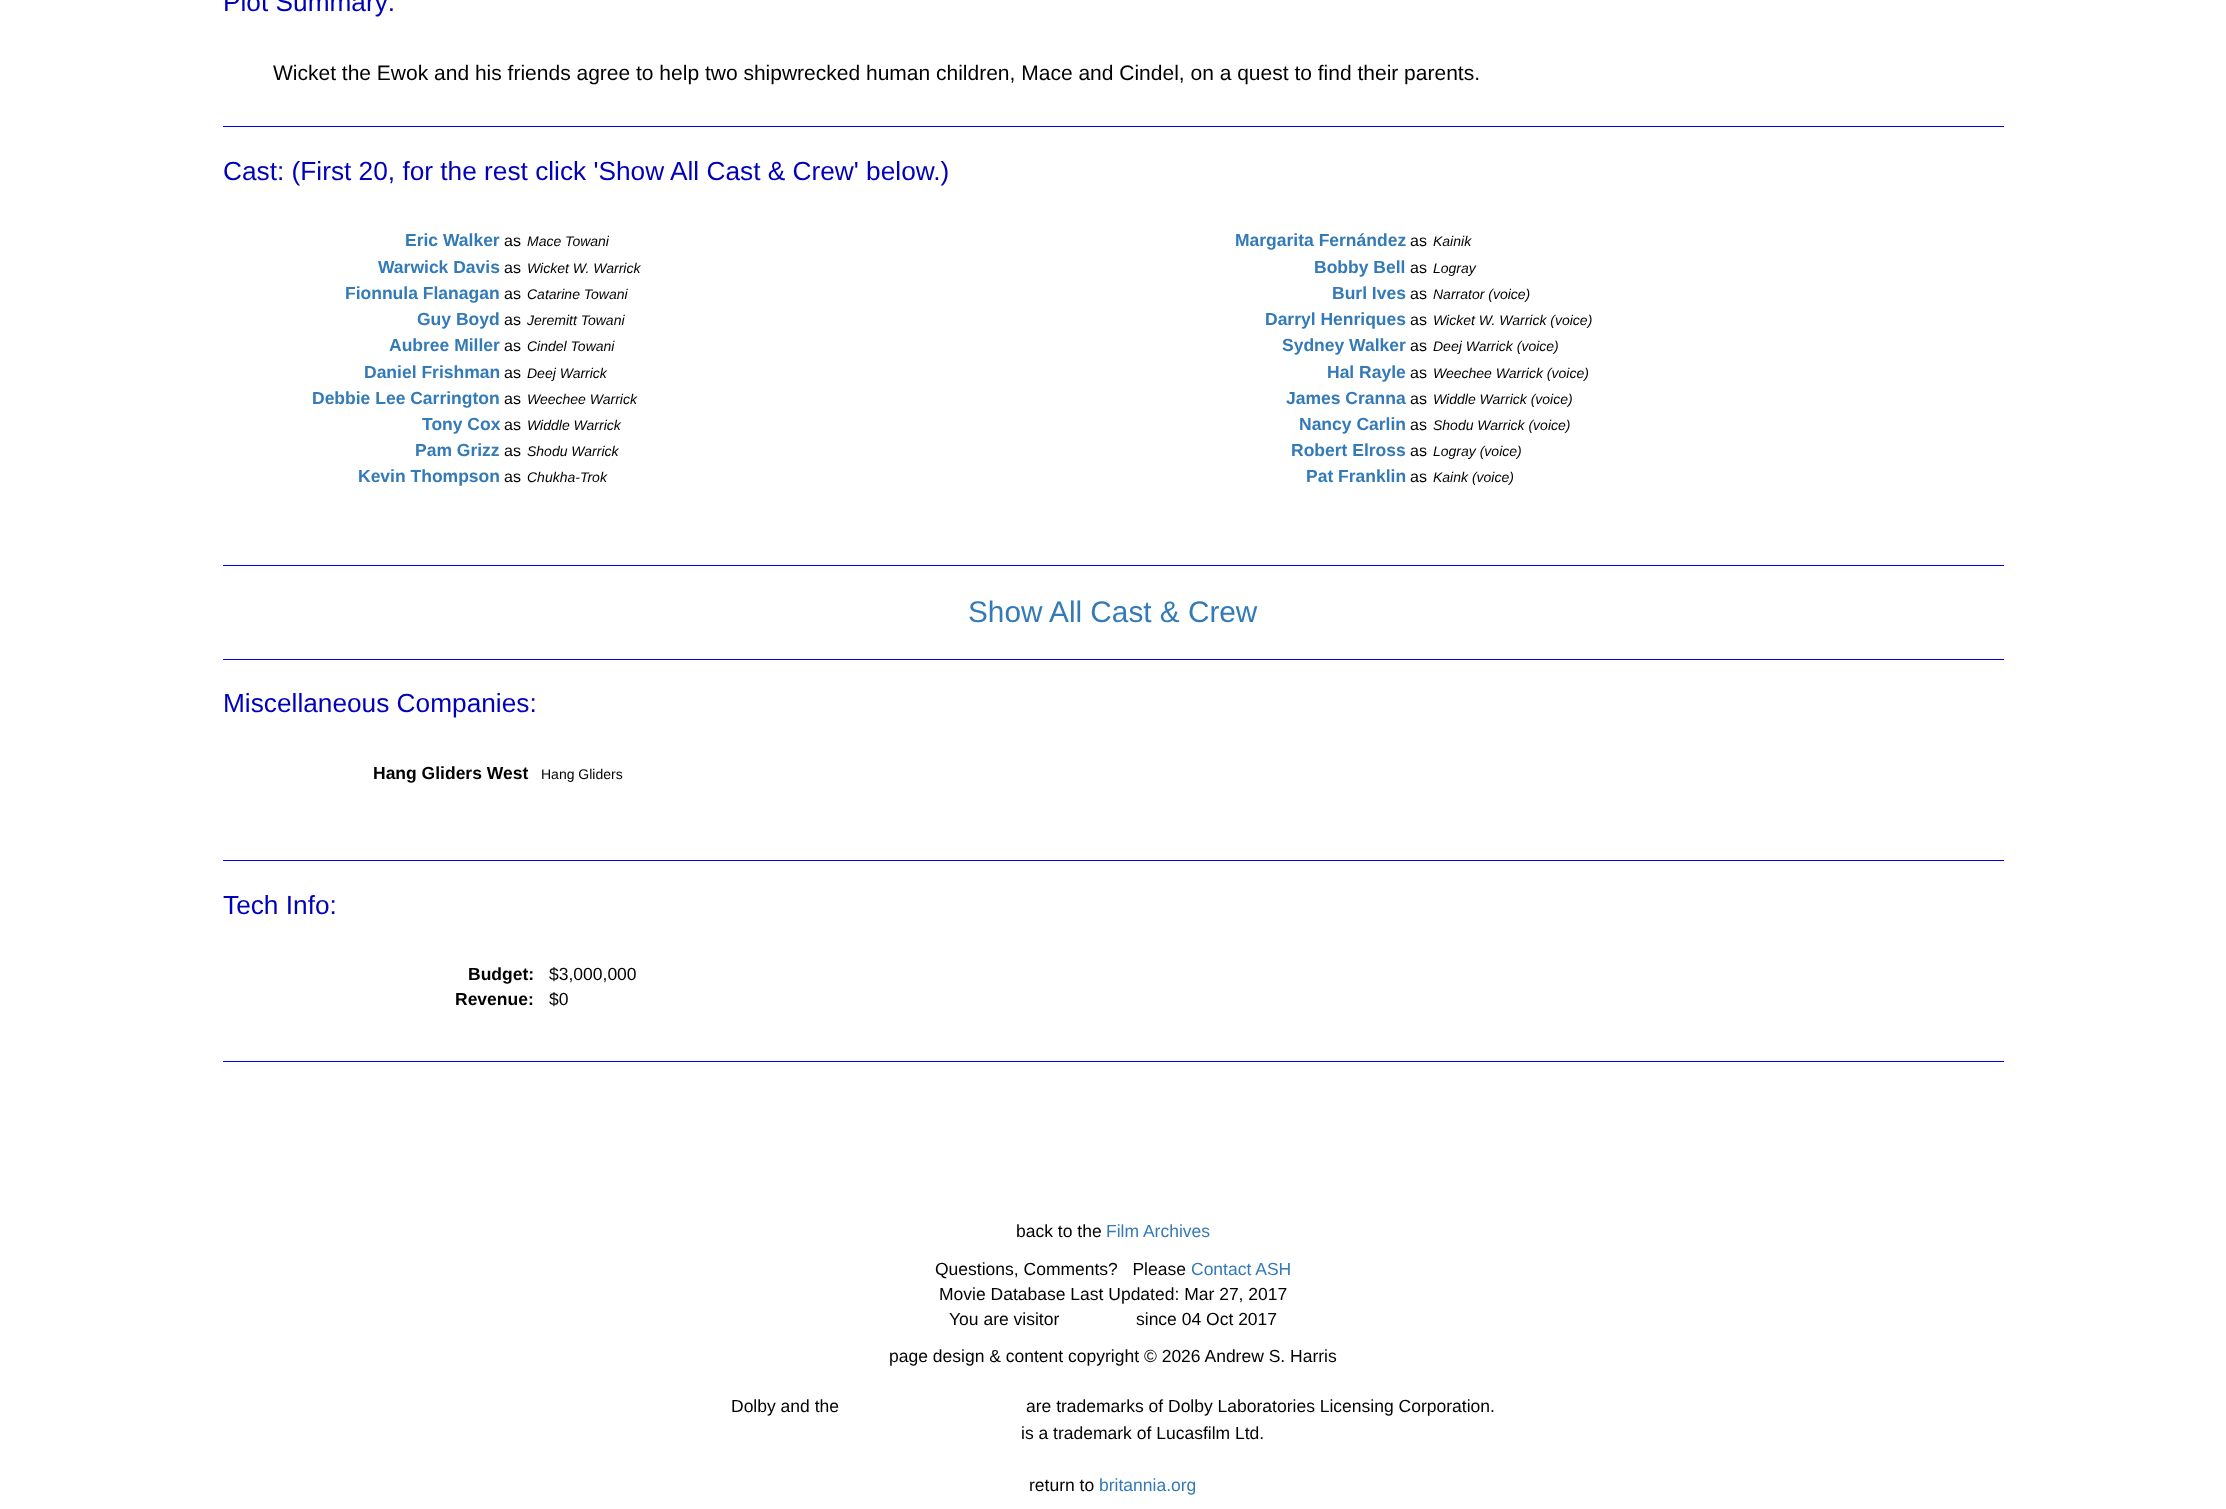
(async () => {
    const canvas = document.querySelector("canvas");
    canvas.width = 2226;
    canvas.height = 1509;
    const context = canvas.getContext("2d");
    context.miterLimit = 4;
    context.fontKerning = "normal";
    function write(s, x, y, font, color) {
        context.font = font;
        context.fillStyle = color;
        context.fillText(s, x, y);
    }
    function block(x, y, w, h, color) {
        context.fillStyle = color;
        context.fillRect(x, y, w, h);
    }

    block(0, 0, 2226, 1509, "rgb(255, 255, 255)");
    write("Plot Summary:", 223, 11, "26.25px Liberation Sans", "rgb(0, 0, 187)");
    write("Wicket the Ewok and his friends agree to help two shipwrecked human children, Mace and Cindel, on a quest to find their parents.", 273, 80, "21px Liberation Sans", "rgb(0, 0, 0)");
    block(223, 126, 1781, 1, "rgb(0, 0, 255)");
    write("Cast: (First 20, for the rest click 'Show All Cast & Crew' below.)", 223, 180, "26.25px Liberation Sans", "rgb(0, 0, 187)");
    write("Eric Walker", 405, 246, "bold 17.5px Liberation Sans", "rgb(51, 122, 183)");
    write("as", 504, 246, "16px Liberation Sans", "rgb(0, 0, 0)");
    write("Mace Towani", 527, 246, "italic 14px Liberation Sans", "rgb(0, 0, 0)");
    write("Warwick Davis", 378, 273, "bold 17.5px Liberation Sans", "rgb(51, 122, 183)");
    write("as", 504, 273, "16px Liberation Sans", "rgb(0, 0, 0)");
    write("Wicket W. Warrick", 527, 273, "italic 14px Liberation Sans", "rgb(0, 0, 0)");
    write("Fionnula Flanagan", 345, 299, "bold 17.5px Liberation Sans", "rgb(51, 122, 183)");
    write("as", 504, 299, "16px Liberation Sans", "rgb(0, 0, 0)");
    write("Catarine Towani", 527, 299, "italic 14px Liberation Sans", "rgb(0, 0, 0)");
    write("Guy Boyd", 417, 325, "bold 17.5px Liberation Sans", "rgb(51, 122, 183)");
    write("as", 504, 325, "16px Liberation Sans", "rgb(0, 0, 0)");
    write("Jeremitt Towani", 527, 325, "italic 14px Liberation Sans", "rgb(0, 0, 0)");
    write("Aubree Miller", 389, 351, "bold 17.5px Liberation Sans", "rgb(51, 122, 183)");
    write("as", 504, 351, "16px Liberation Sans", "rgb(0, 0, 0)");
    write("Cindel Towani", 527, 351, "italic 14px Liberation Sans", "rgb(0, 0, 0)");
    write("Daniel Frishman", 364, 378, "bold 17.5px Liberation Sans", "rgb(51, 122, 183)");
    write("as", 504, 378, "16px Liberation Sans", "rgb(0, 0, 0)");
    write("Deej Warrick", 527, 378, "italic 14px Liberation Sans", "rgb(0, 0, 0)");
    write("Debbie Lee Carrington", 312, 404, "bold 17.5px Liberation Sans", "rgb(51, 122, 183)");
    write("as", 504, 404, "16px Liberation Sans", "rgb(0, 0, 0)");
    write("Weechee Warrick", 527, 404, "italic 14px Liberation Sans", "rgb(0, 0, 0)");
    write("Tony Cox", 422, 430, "bold 17.5px Liberation Sans", "rgb(51, 122, 183)");
    write("as", 504, 430, "16px Liberation Sans", "rgb(0, 0, 0)");
    write("Widdle Warrick", 527, 430, "italic 14px Liberation Sans", "rgb(0, 0, 0)");
    write("Pam Grizz", 415, 456, "bold 17.5px Liberation Sans", "rgb(51, 122, 183)");
    write("as", 504, 456, "16px Liberation Sans", "rgb(0, 0, 0)");
    write("Shodu Warrick", 527, 456, "italic 14px Liberation Sans", "rgb(0, 0, 0)");
    write("Kevin Thompson", 358, 482, "bold 17.5px Liberation Sans", "rgb(51, 122, 183)");
    write("as", 504, 482, "16px Liberation Sans", "rgb(0, 0, 0)");
    write("Chukha-Trok", 527, 482, "italic 14px Liberation Sans", "rgb(0, 0, 0)");
    write("Margarita Fernández", 1235, 246, "bold 17.5px Liberation Sans", "rgb(51, 122, 183)");
    write("as", 1410, 246, "16px Liberation Sans", "rgb(0, 0, 0)");
    write("Kainik", 1433, 246, "italic 14px Liberation Sans", "rgb(0, 0, 0)");
    write("Bobby Bell", 1314, 273, "bold 17.5px Liberation Sans", "rgb(51, 122, 183)");
    write("as", 1410, 273, "16px Liberation Sans", "rgb(0, 0, 0)");
    write("Logray", 1433, 273, "italic 14px Liberation Sans", "rgb(0, 0, 0)");
    write("Burl Ives", 1332, 299, "bold 17.5px Liberation Sans", "rgb(51, 122, 183)");
    write("as", 1410, 299, "16px Liberation Sans", "rgb(0, 0, 0)");
    write("Narrator (voice)", 1433, 299, "italic 14px Liberation Sans", "rgb(0, 0, 0)");
    write("Darryl Henriques", 1265, 325, "bold 17.5px Liberation Sans", "rgb(51, 122, 183)");
    write("as", 1410, 325, "16px Liberation Sans", "rgb(0, 0, 0)");
    write("Wicket W. Warrick (voice)", 1433, 325, "italic 14px Liberation Sans", "rgb(0, 0, 0)");
    write("Sydney Walker", 1282, 351, "bold 17.5px Liberation Sans", "rgb(51, 122, 183)");
    write("as", 1410, 351, "16px Liberation Sans", "rgb(0, 0, 0)");
    write("Deej Warrick (voice)", 1433, 351, "italic 14px Liberation Sans", "rgb(0, 0, 0)");
    write("Hal Rayle", 1327, 378, "bold 17.5px Liberation Sans", "rgb(51, 122, 183)");
    write("as", 1410, 378, "16px Liberation Sans", "rgb(0, 0, 0)");
    write("Weechee Warrick (voice)", 1433, 378, "italic 14px Liberation Sans", "rgb(0, 0, 0)");
    write("James Cranna", 1286, 404, "bold 17.5px Liberation Sans", "rgb(51, 122, 183)");
    write("as", 1410, 404, "16px Liberation Sans", "rgb(0, 0, 0)");
    write("Widdle Warrick (voice)", 1433, 404, "italic 14px Liberation Sans", "rgb(0, 0, 0)");
    write("Nancy Carlin", 1299, 430, "bold 17.5px Liberation Sans", "rgb(51, 122, 183)");
    write("as", 1410, 430, "16px Liberation Sans", "rgb(0, 0, 0)");
    write("Shodu Warrick (voice)", 1433, 430, "italic 14px Liberation Sans", "rgb(0, 0, 0)");
    write("Robert Elross", 1291, 456, "bold 17.5px Liberation Sans", "rgb(51, 122, 183)");
    write("as", 1410, 456, "16px Liberation Sans", "rgb(0, 0, 0)");
    write("Logray (voice)", 1433, 456, "italic 14px Liberation Sans", "rgb(0, 0, 0)");
    write("Pat Franklin", 1306, 482, "bold 17.5px Liberation Sans", "rgb(51, 122, 183)");
    write("as", 1410, 482, "16px Liberation Sans", "rgb(0, 0, 0)");
    write("Kaink (voice)", 1433, 482, "italic 14px Liberation Sans", "rgb(0, 0, 0)");
    block(223, 565, 1781, 1, "rgb(0, 0, 255)");
    write("Show All Cast & Crew", 968, 622, "29.75px Liberation Sans", "rgb(51, 122, 183)");
    block(223, 659, 1781, 1, "rgb(0, 0, 255)");
    write("Miscellaneous Companies:", 223, 712, "26.25px Liberation Sans", "rgb(0, 0, 187)");
    write("Hang Gliders West", 373, 779, "bold 17.5px Liberation Sans", "rgb(0, 0, 0)");
    write("Hang Gliders", 541, 779, "14px Liberation Sans", "rgb(0, 0, 0)");
    block(223, 860, 1781, 1, "rgb(0, 0, 255)");
    write("Tech Info:", 223, 914, "26.25px Liberation Sans", "rgb(0, 0, 187)");
    write("Budget:", 468, 980, "bold 17.5px Liberation Sans", "rgb(0, 0, 0)");
    write("$3,000,000", 549, 980, "17.5px Liberation Sans", "rgb(0, 0, 0)");
    write("Revenue:", 455, 1005, "bold 17.5px Liberation Sans", "rgb(0, 0, 0)");
    write("$0", 549, 1005, "17.5px Liberation Sans", "rgb(0, 0, 0)");
    block(223, 1061, 1781, 1, "rgb(0, 0, 255)");
    write("back to the", 1016, 1237, "17.5px Liberation Sans", "rgb(0, 0, 0)");
    write("Film Archives", 1106, 1237, "17.5px Liberation Sans", "rgb(51, 122, 183)");
    write("Questions, Comments?   Please", 935, 1275, "17.5px Liberation Sans", "rgb(0, 0, 0)");
    write("Contact ASH", 1191, 1275, "17.5px Liberation Sans", "rgb(51, 122, 183)");
    write("Movie Database Last Updated: Mar 27, 2017", 939, 1300, "17.5px Liberation Sans", "rgb(0, 0, 0)");
    write("You are visitor", 949, 1325, "17.5px Liberation Sans", "rgb(0, 0, 0)");
    write("since 04 Oct 2017", 1136, 1325, "17.5px Liberation Sans", "rgb(0, 0, 0)");
    write("page design & content copyright © 2026 Andrew S. Harris", 889, 1362, "17.5px Liberation Sans", "rgb(0, 0, 0)");
    write("Dolby and the", 731, 1412, "17.5px Liberation Sans", "rgb(0, 0, 0)");
    write("are trademarks of Dolby Laboratories Licensing Corporation.", 1026, 1412, "17.5px Liberation Sans", "rgb(0, 0, 0)");
    write("is a trademark of Lucasfilm Ltd.", 1021, 1439, "17.5px Liberation Sans", "rgb(0, 0, 0)");
    write("return to", 1029, 1491, "17.5px Liberation Sans", "rgb(0, 0, 0)");
    write("britannia.org", 1099, 1491, "17.5px Liberation Sans", "rgb(51, 122, 183)");
})();
